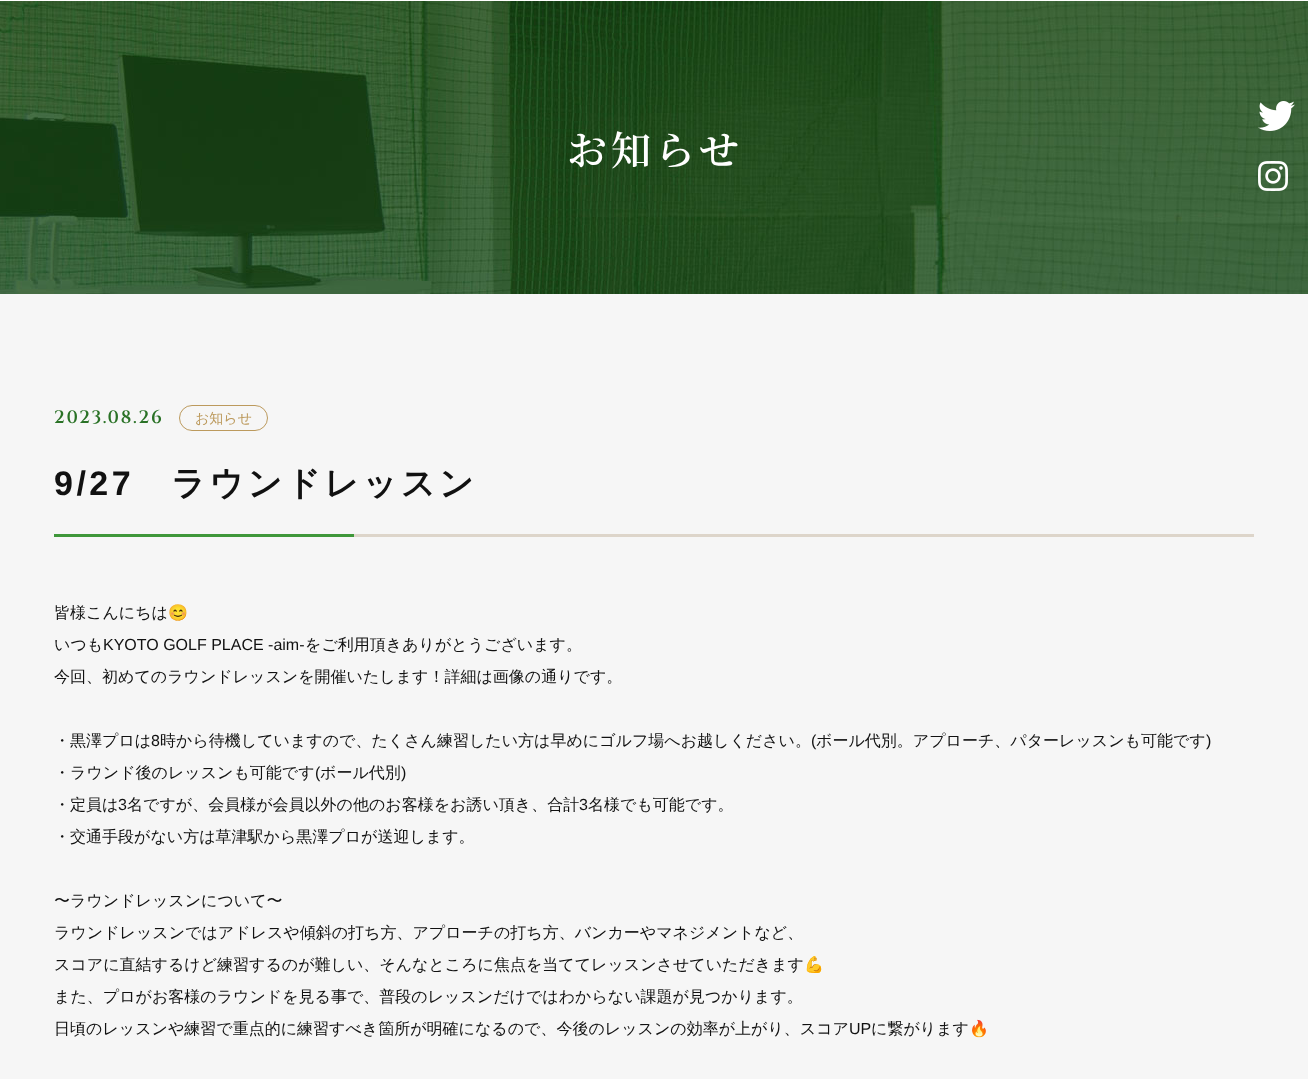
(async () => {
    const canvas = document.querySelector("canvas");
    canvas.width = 1308;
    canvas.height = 1079;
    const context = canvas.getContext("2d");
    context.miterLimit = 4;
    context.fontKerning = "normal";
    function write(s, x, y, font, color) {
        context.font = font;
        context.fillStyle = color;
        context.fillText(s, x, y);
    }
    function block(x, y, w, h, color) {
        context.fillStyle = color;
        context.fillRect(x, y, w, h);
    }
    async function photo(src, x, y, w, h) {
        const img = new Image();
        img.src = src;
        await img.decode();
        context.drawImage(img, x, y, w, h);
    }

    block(0, 0, 1308, 1079, "rgb(246, 246, 246)");
    block(0, 0, 1308, 1, "rgb(255, 255, 255)");
    await photo("media/1.png", 0, 1, 1308, 293);
    context.letterSpacing = "4px";
    write("お知らせ", 567, 165, "200 40px Noto Serif JP", "rgb(255, 255, 255)");
    await photo("media/2.png", 1258, 101, 37, 30);
    await photo("media/3.png", 1258, 161, 30, 30);
    context.letterSpacing = "1.75px";
    write("2023.08.26", 54, 423, "600 18px Cinzel", "rgb(42, 114, 38)");
    context.beginPath();
    context.roundRect(179.5, 405.5, 88, 25, 12.5);
    context.strokeStyle = "rgb(188, 154, 93)";
    context.stroke();
    context.letterSpacing = "0px";
    write("お知らせ", 195, 423, "500 14px WenQuanYi Zen Hei", "rgb(188, 154, 93)");
    block(354, 534, 900, 3, "rgb(221, 213, 202)");
    context.letterSpacing = "3.5px";
    write("9/27", 54, 495, "bold 34px Liberation Sans", "rgb(17, 17, 17)");
    write("ラウンドレッスン", 171, 495, "bold 34px WenQuanYi Zen Hei", "rgb(17, 17, 17)");
    block(54, 534, 300, 3, "rgb(63, 151, 58)");
    context.letterSpacing = "0px";
    write("皆様こんにちは", 54, 618, "500 16px WenQuanYi Zen Hei", "rgb(17, 17, 17)");
    write("😊", 168, 618, "16px Noto Color Emoji", "rgb(17, 17, 17)");
    write("いつも", 54, 650, "500 16px WenQuanYi Zen Hei", "rgb(17, 17, 17)");
    write("KYOTO GOLF PLACE -aim-", 103, 650, "16px Liberation Sans", "rgb(17, 17, 17)");
    write("をご利用頂きありがとうございます。", 305, 650, "500 16px WenQuanYi Zen Hei", "rgb(17, 17, 17)");
    write("今回、初めてのラウンドレッスンを開催いたします！詳細は画像の通りです。", 54, 682, "500 16px WenQuanYi Zen Hei", "rgb(17, 17, 17)");
    write("・黒澤プロは", 54, 746, "500 16px WenQuanYi Zen Hei", "rgb(17, 17, 17)");
    write("8", 151, 746, "16px Liberation Sans", "rgb(17, 17, 17)");
    write("時から待機していますので、たくさん練習したい方は早めにゴルフ場へお越しください。", 160, 746, "500 16px WenQuanYi Zen Hei", "rgb(17, 17, 17)");
    write("(", 811, 746, "16px Liberation Sans", "rgb(17, 17, 17)");
    write("ボール代別。アプローチ、パターレッスンも可能です", 816, 746, "500 16px WenQuanYi Zen Hei", "rgb(17, 17, 17)");
    write(")", 1206, 746, "16px Liberation Sans", "rgb(17, 17, 17)");
    write("・ラウンド後のレッスンも可能です", 54, 778, "500 16px WenQuanYi Zen Hei", "rgb(17, 17, 17)");
    write("(", 315, 778, "16px Liberation Sans", "rgb(17, 17, 17)");
    write("ボール代別", 320, 778, "500 16px WenQuanYi Zen Hei", "rgb(17, 17, 17)");
    write(")", 401, 778, "16px Liberation Sans", "rgb(17, 17, 17)");
    write("・定員は", 54, 810, "500 16px WenQuanYi Zen Hei", "rgb(17, 17, 17)");
    write("3", 118, 810, "16px Liberation Sans", "rgb(17, 17, 17)");
    write("名ですが、会員様が会員以外の他のお客様をお誘い頂き、合計", 127, 810, "500 16px WenQuanYi Zen Hei", "rgb(17, 17, 17)");
    write("3", 579, 810, "16px Liberation Sans", "rgb(17, 17, 17)");
    write("名様でも可能です。", 588, 810, "500 16px WenQuanYi Zen Hei", "rgb(17, 17, 17)");
    write("・交通手段がない方は草津駅から黒澤プロが送迎します。", 54, 842, "500 16px WenQuanYi Zen Hei", "rgb(17, 17, 17)");
    write("〜ラウンドレッスンについて〜", 54, 906, "500 16px WenQuanYi Zen Hei", "rgb(17, 17, 17)");
    write("ラウンドレッスンではアドレスや傾斜の打ち方、アプローチの打ち方、バンカーやマネジメントなど、", 54, 938, "500 16px WenQuanYi Zen Hei", "rgb(17, 17, 17)");
    write("スコアに直結するけど練習するのが難しい、そんなところに焦点を当ててレッスンさせていただきます", 54, 970, "500 16px WenQuanYi Zen Hei", "rgb(17, 17, 17)");
    write("💪", 804, 970, "16px Noto Color Emoji", "rgb(17, 17, 17)");
    write("また、プロがお客様のラウンドを見る事で、普段のレッスンだけではわからない課題が見つかります。", 54, 1002, "500 16px WenQuanYi Zen Hei", "rgb(17, 17, 17)");
    write("日頃のレッスンや練習で重点的に練習すべき箇所が明確になるので、今後のレッスンの効率が上がり、スコア", 54, 1034, "500 16px WenQuanYi Zen Hei", "rgb(17, 17, 17)");
    write("UP", 849, 1034, "16px Liberation Sans", "rgb(17, 17, 17)");
    write("に繋がります", 871, 1034, "500 16px WenQuanYi Zen Hei", "rgb(17, 17, 17)");
    write("🔥", 969, 1034, "16px Noto Color Emoji", "rgb(17, 17, 17)");
})();
